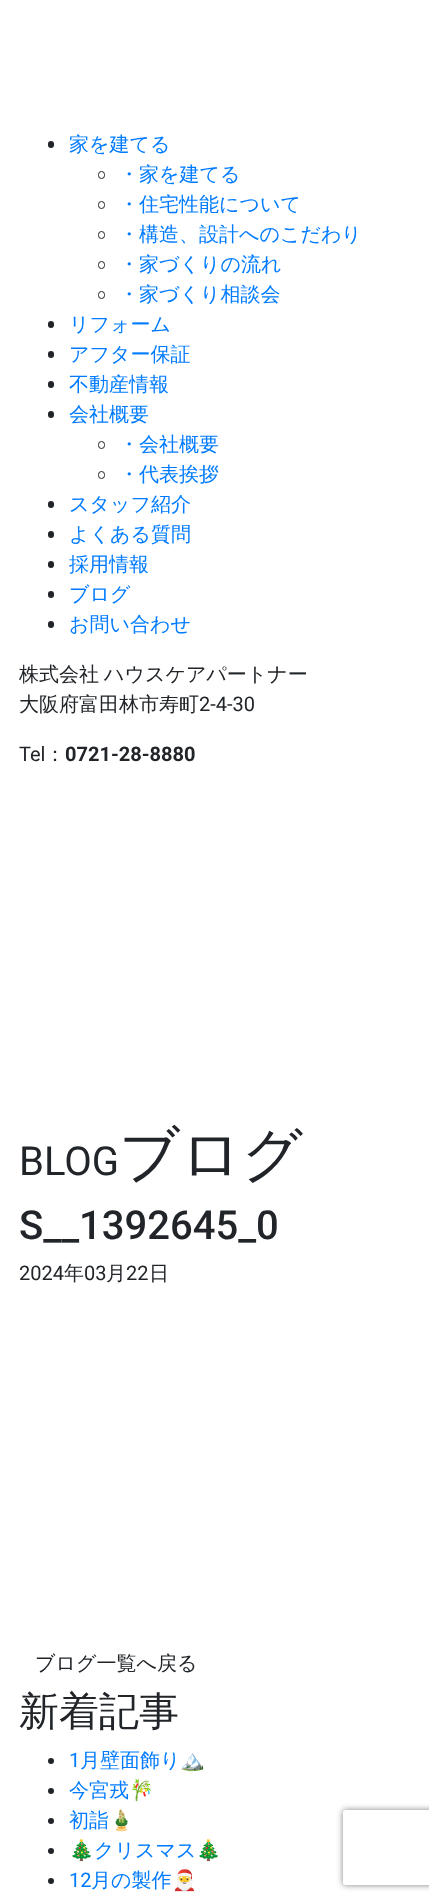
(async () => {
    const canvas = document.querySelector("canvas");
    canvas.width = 429;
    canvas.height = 1902;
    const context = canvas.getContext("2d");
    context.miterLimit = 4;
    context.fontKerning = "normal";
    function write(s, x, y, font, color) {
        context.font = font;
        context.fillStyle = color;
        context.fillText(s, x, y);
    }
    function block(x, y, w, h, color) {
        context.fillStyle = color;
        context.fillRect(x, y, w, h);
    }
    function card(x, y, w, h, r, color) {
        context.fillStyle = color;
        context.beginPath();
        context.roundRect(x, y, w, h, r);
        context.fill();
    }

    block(0, 0, 429, 1902, "rgb(255, 255, 255)");
    card(48, 141, 6, 7, 3, "rgb(33, 37, 41)");
    write("家を建てる", 69, 151, "500 20px WenQuanYi Zen Hei", "rgb(0, 123, 255)");
    context.beginPath();
    context.roundRect(98.5, 171.5, 6, 7, 3);
    context.strokeStyle = "rgb(33, 37, 41)";
    context.stroke();
    write("・家を建てる", 119, 181, "500 20px WenQuanYi Zen Hei", "rgb(0, 123, 255)");
    context.beginPath();
    context.roundRect(98.5, 201.5, 6, 7, 3);
    context.stroke();
    write("・住宅性能について", 119, 211, "500 20px WenQuanYi Zen Hei", "rgb(0, 123, 255)");
    context.beginPath();
    context.roundRect(98.5, 231.5, 6, 7, 3);
    context.stroke();
    write("・構造、設計へのこだわり", 119, 241, "500 20px WenQuanYi Zen Hei", "rgb(0, 123, 255)");
    context.beginPath();
    context.roundRect(98.5, 261.5, 6, 7, 3);
    context.stroke();
    write("・家づくりの流れ", 119, 271, "500 20px WenQuanYi Zen Hei", "rgb(0, 123, 255)");
    context.beginPath();
    context.roundRect(98.5, 291.5, 6, 7, 3);
    context.stroke();
    write("・家づくり相談会", 119, 301, "500 20px WenQuanYi Zen Hei", "rgb(0, 123, 255)");
    card(48, 321, 6, 7, 3, "rgb(33, 37, 41)");
    write("リフォーム", 69, 331, "500 20px WenQuanYi Zen Hei", "rgb(0, 123, 255)");
    card(48, 351, 6, 7, 3, "rgb(33, 37, 41)");
    write("アフター保証", 69, 361, "500 20px WenQuanYi Zen Hei", "rgb(0, 123, 255)");
    card(48, 381, 6, 7, 3, "rgb(33, 37, 41)");
    write("不動産情報", 69, 391, "500 20px WenQuanYi Zen Hei", "rgb(0, 123, 255)");
    card(48, 411, 6, 7, 3, "rgb(33, 37, 41)");
    write("会社概要", 69, 421, "500 20px WenQuanYi Zen Hei", "rgb(0, 123, 255)");
    context.beginPath();
    context.roundRect(98.5, 441.5, 6, 7, 3);
    context.stroke();
    write("・会社概要", 119, 451, "500 20px WenQuanYi Zen Hei", "rgb(0, 123, 255)");
    context.beginPath();
    context.roundRect(98.5, 471.5, 6, 7, 3);
    context.stroke();
    write("・代表挨拶", 119, 481, "500 20px WenQuanYi Zen Hei", "rgb(0, 123, 255)");
    card(48, 501, 6, 7, 3, "rgb(33, 37, 41)");
    write("スタッフ紹介", 69, 511, "500 20px WenQuanYi Zen Hei", "rgb(0, 123, 255)");
    card(48, 531, 6, 7, 3, "rgb(33, 37, 41)");
    write("よくある質問", 69, 541, "500 20px WenQuanYi Zen Hei", "rgb(0, 123, 255)");
    card(48, 561, 6, 7, 3, "rgb(33, 37, 41)");
    write("採用情報", 69, 571, "500 20px WenQuanYi Zen Hei", "rgb(0, 123, 255)");
    card(48, 591, 6, 7, 3, "rgb(33, 37, 41)");
    write("ブログ", 69, 601, "500 20px WenQuanYi Zen Hei", "rgb(0, 123, 255)");
    card(48, 621, 6, 7, 3, "rgb(33, 37, 41)");
    write("お問い合わせ", 69, 631, "500 20px WenQuanYi Zen Hei", "rgb(0, 123, 255)");
    write("株式会社", 19, 681, "500 20px WenQuanYi Zen Hei", "rgb(33, 37, 41)");
    write("ハウスケアパートナー", 104, 681, "500 20px WenQuanYi Zen Hei", "rgb(33, 37, 41)");
    write("大阪府富田林市寿町", 19, 711, "500 20px WenQuanYi Zen Hei", "rgb(33, 37, 41)");
    write("2-4-30", 199, 711, "20px Roboto", "rgb(33, 37, 41)");
    write("Tel", 19, 761, "20px Roboto", "rgb(33, 37, 41)");
    write("：", 45, 761, "500 20px WenQuanYi Zen Hei", "rgb(33, 37, 41)");
    write("0721-28-8880", 65, 761, "bold 20px Roboto", "rgb(33, 37, 41)");
    write("BLOG", 19, 1175, "40px Roboto", "rgb(33, 37, 41)");
    write("ブログ", 119, 1175, "500 60px WenQuanYi Zen Hei", "rgb(33, 37, 41)");
    write("S__1392645_0", 19, 1239, "500 40px Roboto", "rgb(33, 37, 41)");
    write("2024", 19, 1280, "20px Roboto", "rgb(33, 37, 41)");
    write("年", 64, 1280, "500 20px WenQuanYi Zen Hei", "rgb(33, 37, 41)");
    write("03", 84, 1280, "20px Roboto", "rgb(33, 37, 41)");
    write("月", 106, 1280, "500 20px WenQuanYi Zen Hei", "rgb(33, 37, 41)");
    write("22", 126, 1280, "20px Roboto", "rgb(33, 37, 41)");
    write("日", 149, 1280, "500 20px WenQuanYi Zen Hei", "rgb(33, 37, 41)");
    write("ブログ一覧へ戻る", 35, 1670, "500 20px WenQuanYi Zen Hei", "rgb(33, 37, 41)");
    write("新着記事", 19, 1725, "500 40px WenQuanYi Zen Hei", "rgb(33, 37, 41)");
    context.beginPath();
    context.arc(51, 1761, 3, 0, Math.PI * 2);
    context.fill();
    write("1", 69, 1767, "20px Roboto", "rgb(0, 123, 255)");
    write("月壁面飾り", 80, 1767, "500 20px WenQuanYi Zen Hei", "rgb(0, 123, 255)");
    write("🏔", 180, 1767, "20px Noto Color Emoji", "rgb(0, 123, 255)");
    context.fillStyle = "rgb(33, 37, 41)";
    context.beginPath();
    context.arc(51, 1791, 3, 0, Math.PI * 2);
    context.fill();
    write("今宮戎", 69, 1797, "500 20px WenQuanYi Zen Hei", "rgb(0, 123, 255)");
    write("🎋", 129, 1797, "20px Noto Color Emoji", "rgb(0, 123, 255)");
    context.fillStyle = "rgb(33, 37, 41)";
    context.beginPath();
    context.arc(51, 1821, 3, 0, Math.PI * 2);
    context.fill();
    write("初詣", 69, 1827, "500 20px WenQuanYi Zen Hei", "rgb(0, 123, 255)");
    write("🎍", 109, 1827, "20px Noto Color Emoji", "rgb(0, 123, 255)");
    context.fillStyle = "rgb(33, 37, 41)";
    context.beginPath();
    context.arc(51, 1851, 3, 0, Math.PI * 2);
    context.fill();
    write("🎄", 69, 1857, "20px Noto Color Emoji", "rgb(0, 123, 255)");
    write("クリスマス", 94, 1857, "500 20px WenQuanYi Zen Hei", "rgb(0, 123, 255)");
    write("🎄", 196, 1857, "20px Noto Color Emoji", "rgb(0, 123, 255)");
    context.fillStyle = "rgb(33, 37, 41)";
    context.beginPath();
    context.arc(51, 1881, 3, 0, Math.PI * 2);
    context.fill();
    write("12", 69, 1887, "20px Roboto", "rgb(0, 123, 255)");
    write("月の製作", 91, 1887, "500 20px WenQuanYi Zen Hei", "rgb(0, 123, 255)");
    write("🎅", 172, 1887, "20px Noto Color Emoji", "rgb(0, 123, 255)");
    context.save();
    context.beginPath();
    context.moveTo(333, 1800);
    context.lineTo(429, 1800);
    context.lineTo(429, 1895);
    context.lineTo(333, 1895);
    context.closePath();
    context.moveTo(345.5, 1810);
    context.lineTo(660.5, 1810);
    context.bezierCurveTo(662, 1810, 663, 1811, 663, 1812.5);
    context.lineTo(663, 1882.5);
    context.bezierCurveTo(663, 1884, 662, 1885, 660.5, 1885);
    context.lineTo(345.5, 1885);
    context.bezierCurveTo(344, 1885, 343, 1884, 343, 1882.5);
    context.lineTo(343, 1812.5);
    context.bezierCurveTo(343, 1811, 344, 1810, 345.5, 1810);
    context.closePath();
    context.clip("evenodd");
    context.fillStyle = "rgb(128, 128, 128)";
    context.filter = "blur(3px)";
    context.beginPath();
    context.roundRect(343, 1810, 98, 75, 2.5);
    context.fill();
    context.filter = "none";
    context.restore();
})();
